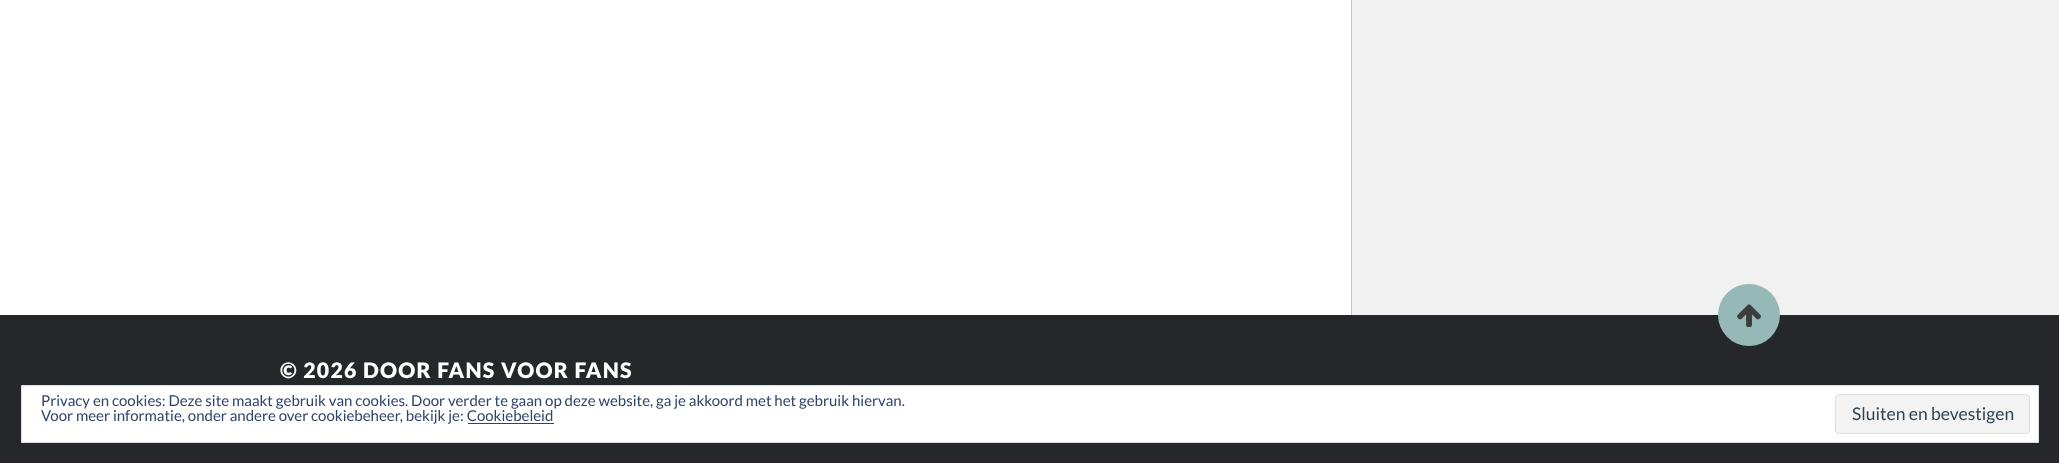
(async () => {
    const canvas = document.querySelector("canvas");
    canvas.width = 2059;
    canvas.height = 463;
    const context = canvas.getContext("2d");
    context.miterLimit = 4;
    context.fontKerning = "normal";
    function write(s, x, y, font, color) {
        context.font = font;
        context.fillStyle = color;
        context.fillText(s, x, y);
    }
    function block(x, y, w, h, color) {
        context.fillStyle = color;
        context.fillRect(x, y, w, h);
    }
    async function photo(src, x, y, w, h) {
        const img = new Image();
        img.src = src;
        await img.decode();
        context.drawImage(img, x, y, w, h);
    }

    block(0, 0, 2059, 463, "rgb(241, 241, 241)");
    block(0, 0, 1351, 315, "rgb(255, 255, 255)");
    block(1351, 0, 1, 315, "rgb(193, 193, 193)");
    block(0, 315, 2059, 148, "rgb(38, 39, 43)");
    context.fillStyle = "rgb(150, 184, 182)";
    context.beginPath();
    context.arc(1749, 315, 31, 0, Math.PI * 2);
    context.fill();
    await photo("media/1.png", 1737, 304, 24, 23);
    context.letterSpacing = "1.25px";
    write("© 2026 DOOR FANS VOOR FANS", 280, 378, "900 21.25px Lato", "rgb(255, 255, 255)");
    context.beginPath();
    context.rect(21.5, 385.5, 2017, 57);
    context.fill();
    context.strokeStyle = "rgb(222, 222, 222)";
    context.stroke();
    context.letterSpacing = "0px";
    write("Privacy en cookies: Deze site maakt gebruik van cookies. Door verder te gaan op deze website, ga je akkoord met het gebruik hiervan.", 41, 406, "15px Lato", "rgb(46, 68, 103)");
    write("Voor meer informatie, onder andere over cookiebeheer, bekijk je: Cookiebeleid", 41, 421, "15px Lato", "rgb(46, 68, 103)");
    context.fillStyle = "rgb(243, 243, 243)";
    context.beginPath();
    context.roundRect(1835.5, 394.5, 194, 39, 3.5);
    context.fill();
    context.stroke();
    write("Sluiten en bevestigen", 1852, 420, "17.5px Lato", "rgb(46, 68, 83)");
    block(468, 423, 86, 1, "rgb(46, 68, 103)");
})();
